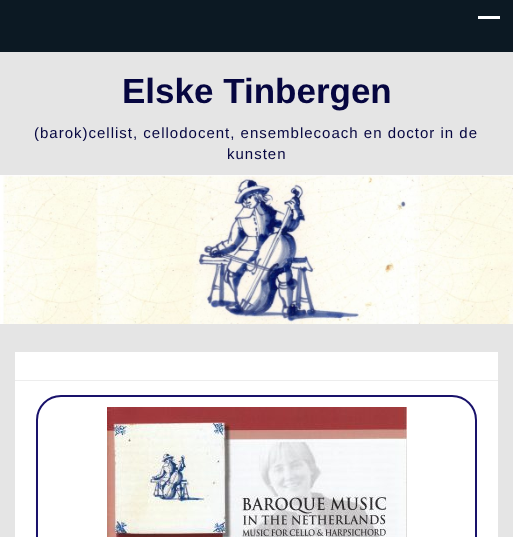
(async () => {
    const canvas = document.querySelector("canvas");
    canvas.width = 513;
    canvas.height = 537;
    const context = canvas.getContext("2d");
    context.miterLimit = 4;
    context.fontKerning = "normal";
    function write(s, x, y, font, color) {
        context.font = font;
        context.fillStyle = color;
        context.fillText(s, x, y);
    }
    function block(x, y, w, h, color) {
        context.fillStyle = color;
        context.fillRect(x, y, w, h);
    }
    async function photo(src, x, y, w, h) {
        const img = new Image();
        img.src = src;
        await img.decode();
        context.drawImage(img, x, y, w, h);
    }

    block(0, 0, 513, 537, "rgb(229, 229, 229)");
    block(0, 0, 513, 52, "rgb(12, 25, 35)");
    block(478, 16, 22, 3, "rgb(255, 255, 255)");
    write("Elske Tinbergen", 122, 103, "bold 35px Liberation Sans", "rgb(6, 6, 64)");
    context.letterSpacing = "1px";
    write("(barok)cellist, cellodocent, ensemblecoach en doctor in de", 34, 138, "15px Liberation Sans", "rgb(6, 6, 64)");
    write("kunsten", 227, 159, "15px Liberation Sans", "rgb(6, 6, 64)");
    await photo("media/1.png", 0, 175, 513, 149);
    block(15, 352, 483, 185, "rgb(255, 255, 255)");
    block(15, 380, 483, 1, "rgb(237, 237, 237)");
    context.beginPath();
    context.roundRect(37, 396, 439, 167, 24);
    context.strokeStyle = "rgb(25, 18, 107)";
    context.lineWidth = 2;
    context.stroke();
    await photo("media/2.png", 107, 407, 300, 130);
})();
